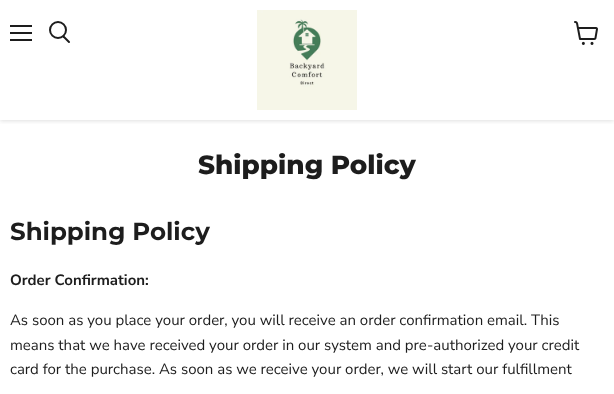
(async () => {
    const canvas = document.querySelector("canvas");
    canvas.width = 614;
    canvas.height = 394;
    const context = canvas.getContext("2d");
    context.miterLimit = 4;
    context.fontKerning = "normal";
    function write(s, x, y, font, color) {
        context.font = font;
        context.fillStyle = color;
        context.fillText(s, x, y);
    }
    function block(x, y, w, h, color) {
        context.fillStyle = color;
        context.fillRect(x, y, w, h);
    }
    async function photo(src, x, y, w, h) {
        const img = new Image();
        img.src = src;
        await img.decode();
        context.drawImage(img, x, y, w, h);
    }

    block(0, 0, 614, 394, "rgb(255, 255, 255)");
    context.save();
    context.beginPath();
    context.rect(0, 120, 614, 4);
    context.clip();
    context.fillStyle = "rgba(128, 128, 128, 0.25)";
    context.filter = "blur(2px)";
    context.beginPath();
    context.rect(0, 1, 614, 120);
    context.fill();
    context.filter = "none";
    context.restore();
    block(10, 25, 22, 2, "rgb(29, 29, 29)");
    block(10, 32, 22, 2, "rgb(29, 29, 29)");
    block(10, 39, 22, 2, "rgb(29, 29, 29)");
    context.beginPath();
    context.moveTo(69, 42);
    context.lineTo(63.5, 36.5);
    context.strokeStyle = "rgb(29, 29, 29)";
    context.lineWidth = 2;
    context.lineCap = "round";
    context.stroke();
    context.beginPath();
    context.arc(58, 30, 8, 0, Math.PI * 2);
    context.stroke();
    await photo("media/1.png", 257, 10, 100, 100);
    await photo("media/2.png", 574, 21, 24, 24);
    write("Shipping Policy", 198, 174, "800 26.25px Montserrat", "rgb(29, 29, 29)");
    write("Shipping Policy", 10, 240, "bold 24.5px Montserrat", "rgb(29, 29, 29)");
    write("Order Confirmation:", 10, 285, "bold 15px Nunito Sans", "rgb(29, 29, 29)");
    write("As soon as you place your order, you will receive an order confirmation email. This", 10, 325, "15px Nunito Sans", "rgb(29, 29, 29)");
    write("means that we have received your order in our system and pre-authorized your credit", 10, 350, "15px Nunito Sans", "rgb(29, 29, 29)");
    write("card for the purchase. As soon as we receive your order, we will start our fulfillment", 10, 374, "15px Nunito Sans", "rgb(29, 29, 29)");
})();
